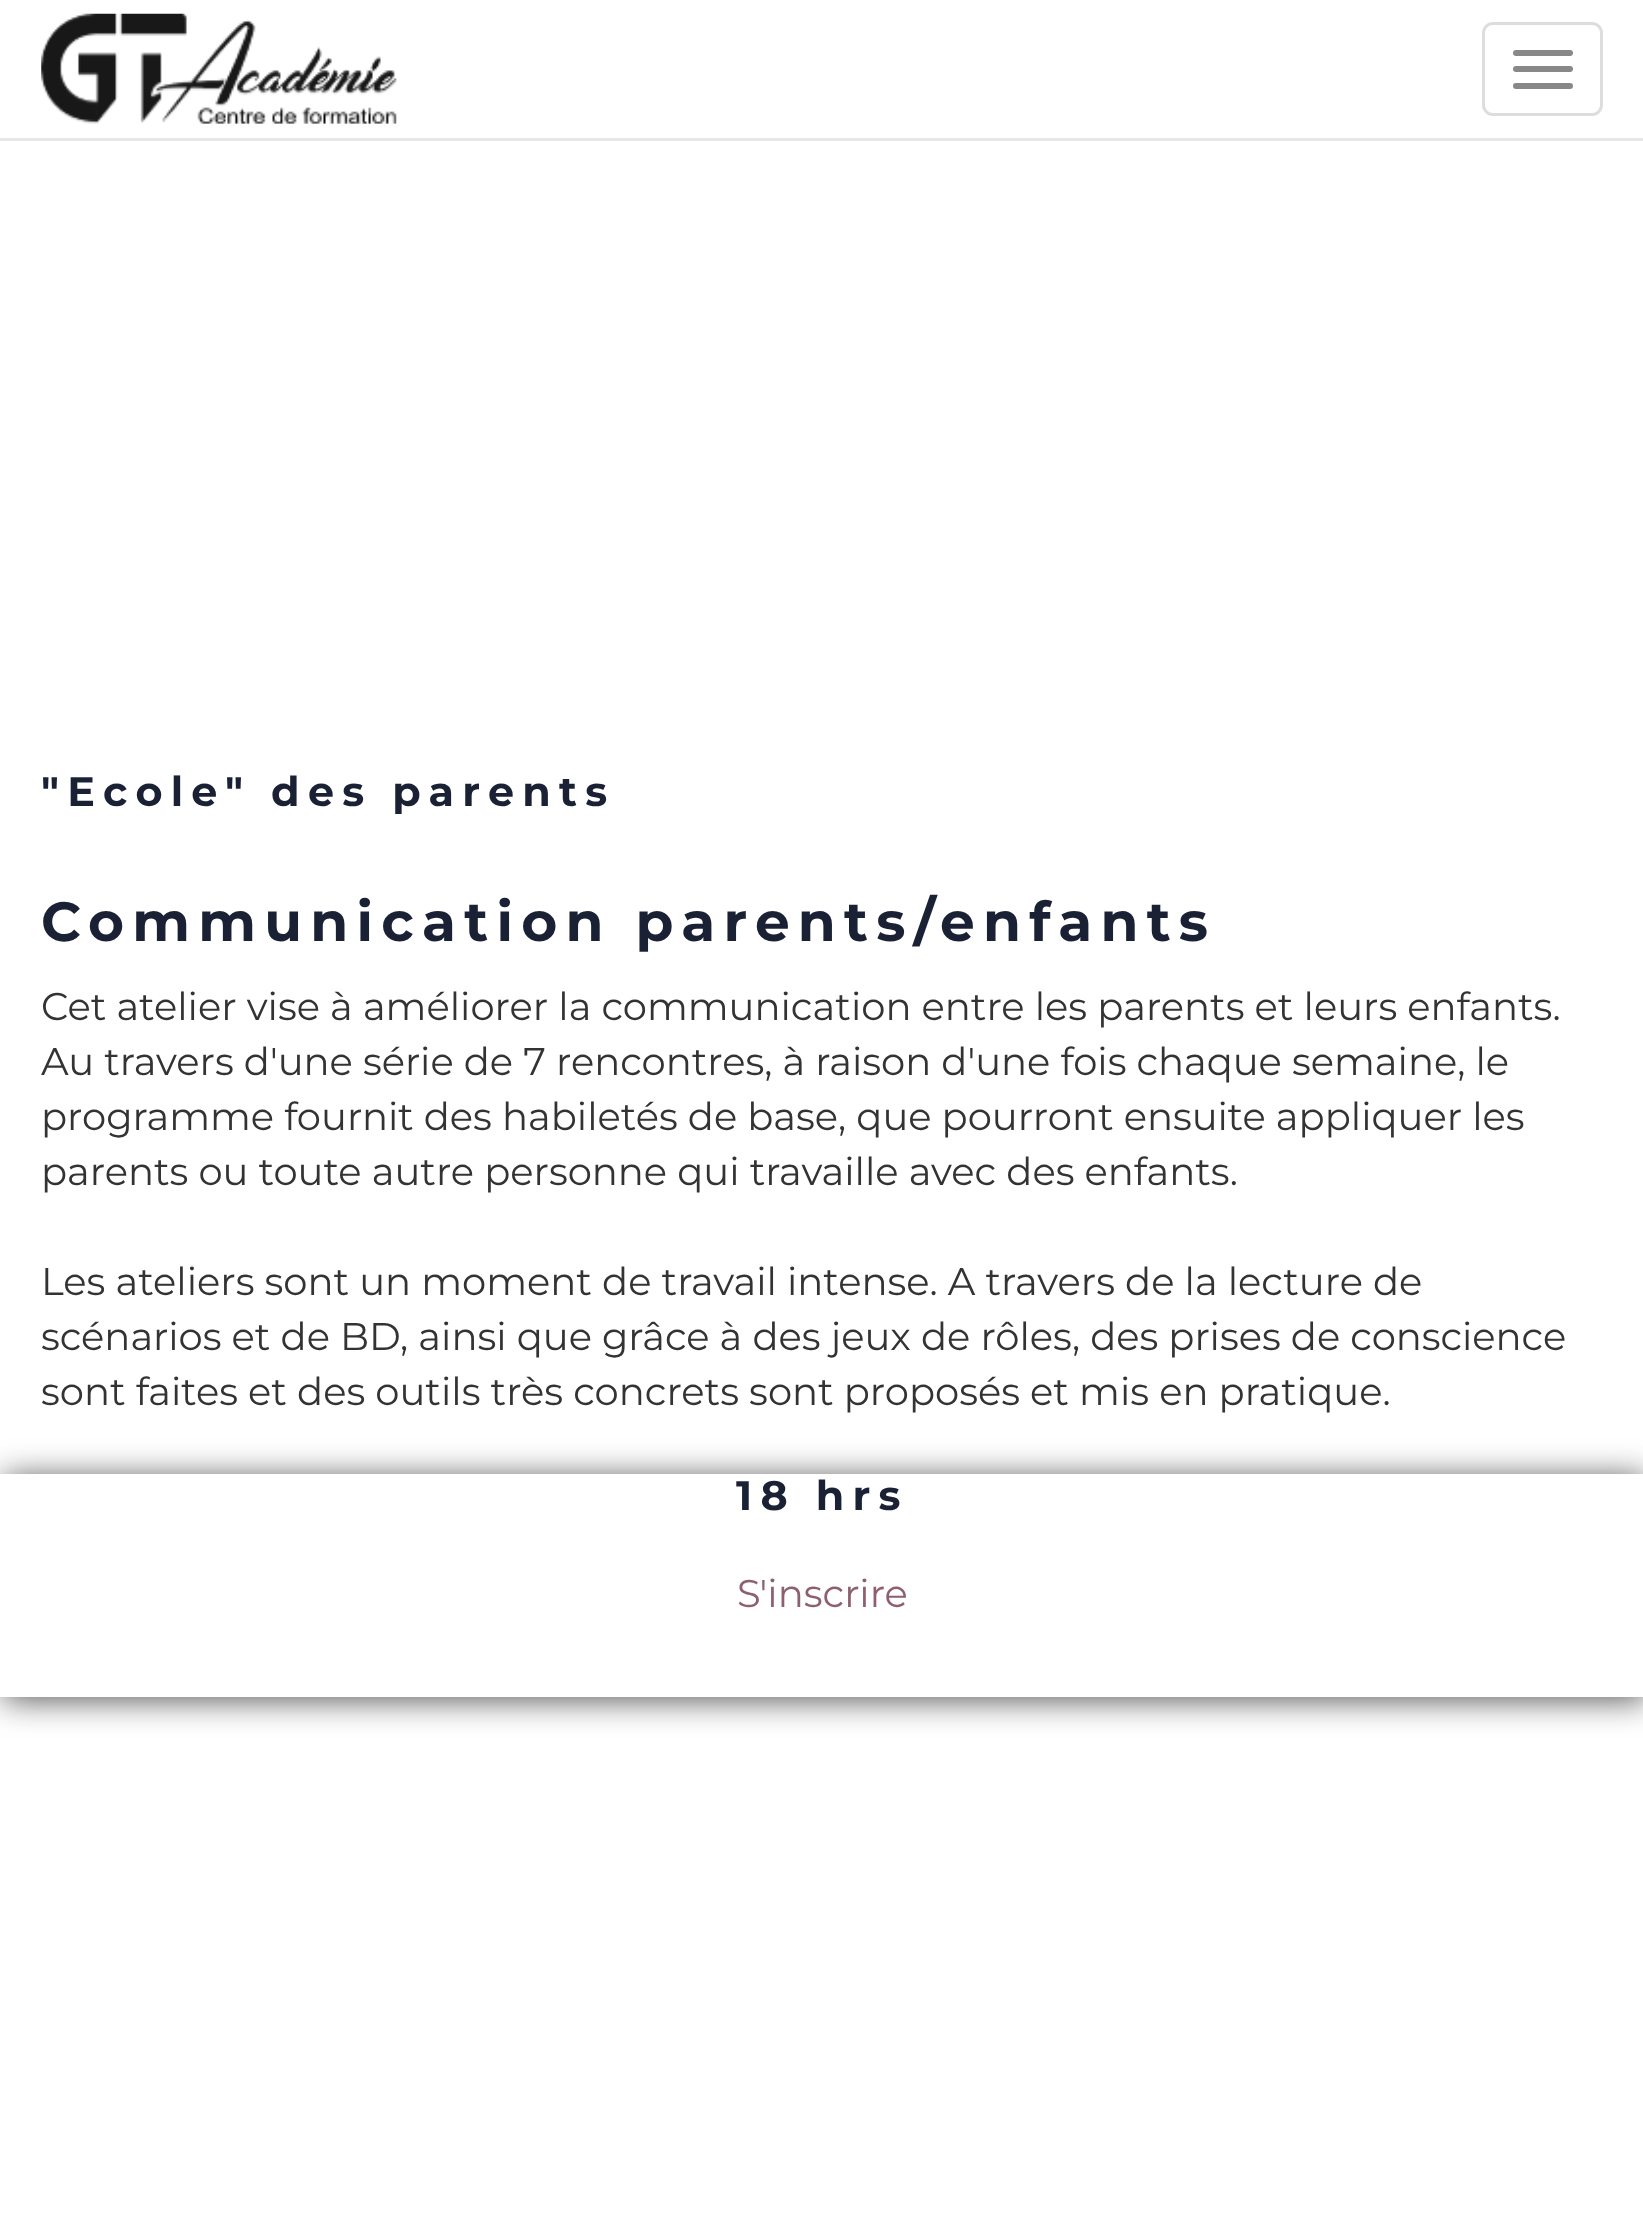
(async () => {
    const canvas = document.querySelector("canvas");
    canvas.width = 1643;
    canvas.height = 2239;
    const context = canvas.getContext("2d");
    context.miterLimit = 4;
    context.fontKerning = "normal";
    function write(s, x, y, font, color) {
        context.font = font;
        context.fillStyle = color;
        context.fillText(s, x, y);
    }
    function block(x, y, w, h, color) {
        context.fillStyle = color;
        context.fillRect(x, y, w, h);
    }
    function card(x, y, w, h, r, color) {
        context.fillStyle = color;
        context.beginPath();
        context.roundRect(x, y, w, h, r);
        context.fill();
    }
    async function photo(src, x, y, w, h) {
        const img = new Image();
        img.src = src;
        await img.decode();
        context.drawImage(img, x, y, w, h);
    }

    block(0, 0, 1643, 2239, "rgb(255, 255, 255)");
    block(0, 138, 1643, 3, "rgb(231, 231, 231)");
    await photo("media/1.png", 41, 13, 356, 111);
    context.beginPath();
    context.roundRect(1483.5, 23.5, 118, 91, 9.5);
    context.strokeStyle = "rgb(221, 221, 221)";
    context.lineWidth = 3;
    context.stroke();
    card(1513, 50, 60, 6, 3, "rgb(136, 136, 136)");
    card(1513, 66, 60, 6, 3, "rgb(136, 136, 136)");
    card(1513, 83, 60, 6, 3, "rgb(136, 136, 136)");
    context.letterSpacing = "8.25px";
    write("\"Ecole\" des parents", 41, 806, "bold 41.25px Montserrat", "rgb(27, 33, 53)");
    write("Communication parents/enfants", 41, 941, "bold 55px Montserrat", "rgb(27, 33, 53)");
    context.letterSpacing = "0px";
    write("Cet atelier vise à améliorer la communication entre les parents et leurs enfants.", 41, 1020, "38.5px Montserrat", "rgb(51, 51, 51)");
    write("Au travers d'une série de 7 rencontres, à raison d'une fois chaque semaine, le", 41, 1075, "38.5px Montserrat", "rgb(51, 51, 51)");
    write("programme fournit des habiletés de base, que pourront ensuite appliquer les", 41, 1130, "38.5px Montserrat", "rgb(51, 51, 51)");
    write("parents ou toute autre personne qui travaille avec des enfants.", 41, 1185, "38.5px Montserrat", "rgb(51, 51, 51)");
    write("Les ateliers sont un moment de travail intense. A travers de la lecture de", 41, 1295, "38.5px Montserrat", "rgb(51, 51, 51)");
    write("scénarios et de BD, ainsi que grâce à des jeux de rôles, des prises de conscience", 41, 1350, "38.5px Montserrat", "rgb(51, 51, 51)");
    write("sont faites et des outils très concrets sont proposés et mis en pratique.", 41, 1405, "38.5px Montserrat", "rgb(51, 51, 51)");
    context.save();
    context.beginPath();
    context.moveTo(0, 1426);
    context.lineTo(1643, 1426);
    context.lineTo(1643, 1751);
    context.lineTo(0, 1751);
    context.closePath();
    context.moveTo(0, 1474);
    context.lineTo(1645, 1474);
    context.lineTo(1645, 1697);
    context.lineTo(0, 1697);
    context.closePath();
    context.clip("evenodd");
    context.fillStyle = "rgb(85, 85, 85)";
    context.filter = "blur(16.5px)";
    context.beginPath();
    context.rect(3, 1477, 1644, 223);
    context.fill();
    context.filter = "none";
    context.restore();
    context.letterSpacing = "8.25px";
    write("18 hrs", 736, 1510, "bold 41.25px Montserrat", "rgb(27, 33, 53)");
    context.letterSpacing = "0px";
    write("S'inscrire", 737, 1607, "38.5px Montserrat", "rgb(142, 96, 111)");
})();
